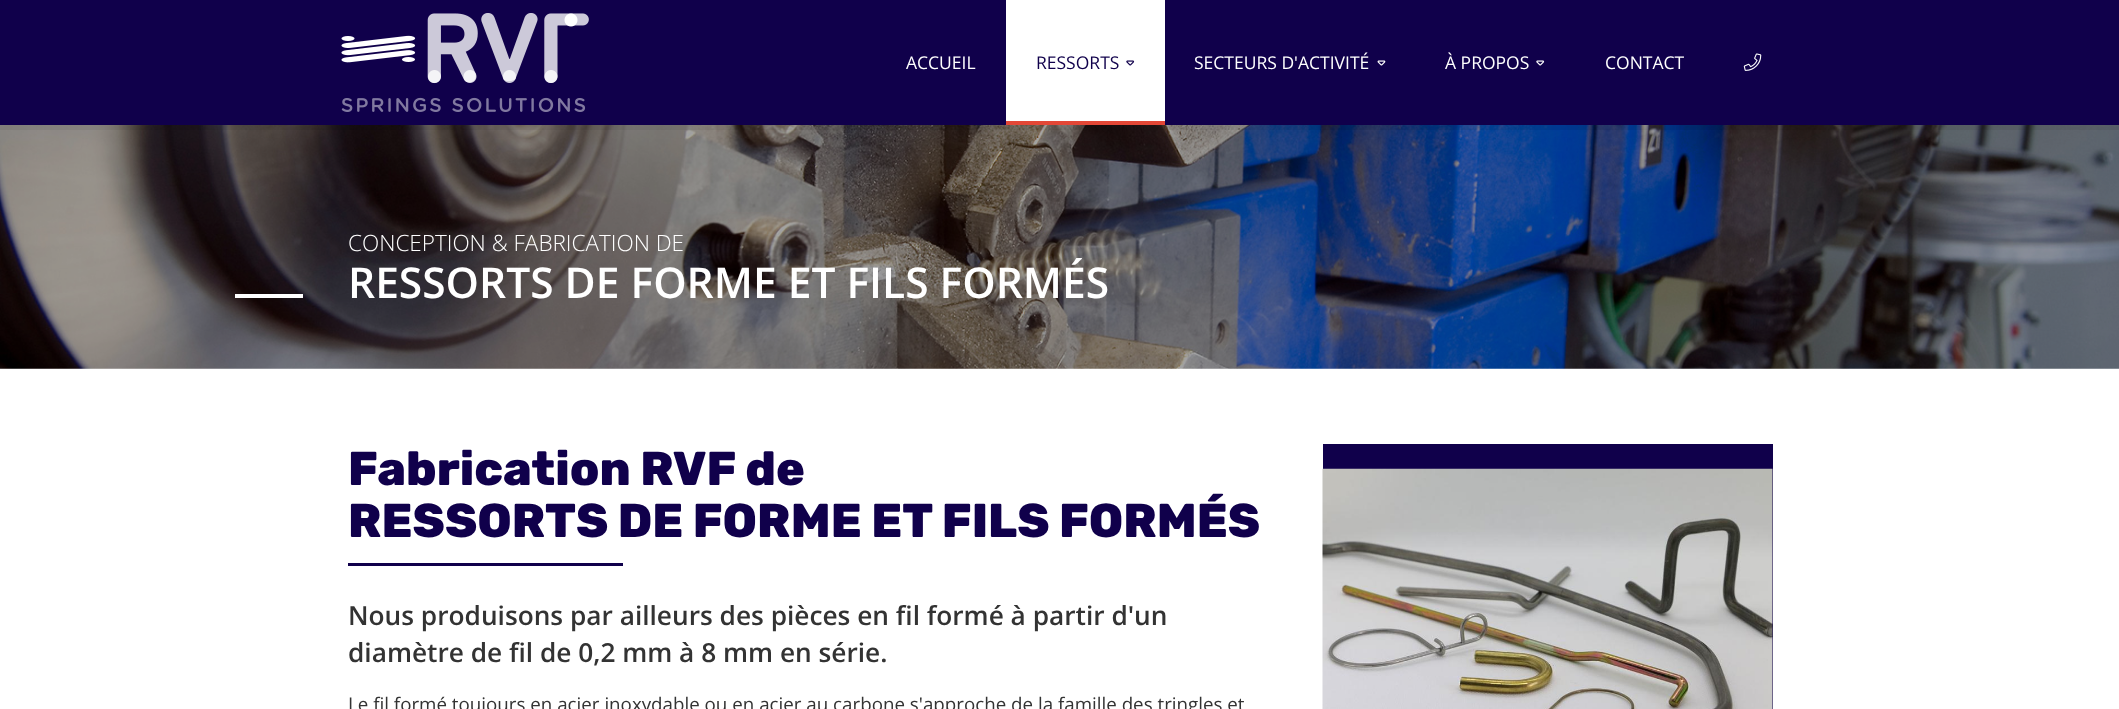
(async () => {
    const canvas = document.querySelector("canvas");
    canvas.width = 2119;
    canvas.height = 709;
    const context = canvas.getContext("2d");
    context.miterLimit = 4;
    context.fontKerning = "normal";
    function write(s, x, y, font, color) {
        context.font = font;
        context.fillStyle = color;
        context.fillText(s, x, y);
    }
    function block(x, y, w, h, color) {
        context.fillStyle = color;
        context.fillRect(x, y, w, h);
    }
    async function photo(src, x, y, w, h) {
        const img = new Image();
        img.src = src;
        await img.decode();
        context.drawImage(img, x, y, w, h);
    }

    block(0, 0, 2119, 709, "rgb(255, 255, 255)");
    await photo("media/6.png", 0, 125, 2119, 244);
    block(0, 125, 2119, 5, "rgba(0, 0, 0, 0.05)");
    block(0, 0, 2119, 125, "rgb(16, 0, 75)");
    await photo("media/1.png", 341, 13, 248, 99);
    write("ACCUEIL", 906, 69, "17.5px Open Sans", "rgb(255, 255, 255)");
    block(1006, 0, 159, 121, "rgb(255, 255, 255)");
    block(1006, 121, 159, 4, "rgb(227, 71, 54)");
    write("RESSORTS", 1036, 69, "17.5px Open Sans", "rgb(16, 0, 75)");
    await photo("media/2.png", 1126, 60, 9, 6);
    write("SECTEURS D'ACTIVITÉ", 1194, 69, "17.5px Open Sans", "rgb(255, 255, 255)");
    await photo("media/3.png", 1377, 60, 9, 6);
    write("À PROPOS", 1445, 69, "17.5px Open Sans", "rgb(255, 255, 255)");
    await photo("media/4.png", 1536, 60, 9, 6);
    write("CONTACT", 1605, 69, "17.5px Open Sans", "rgb(255, 255, 255)");
    await photo("media/5.png", 1743, 53, 19, 18);
    write("CONCEPTION & FABRICATION DE", 348, 251, "300 22.5px Open Sans", "rgb(255, 255, 255)");
    block(235, 294, 68, 4, "rgb(255, 255, 255)");
    write("RESSORTS DE FORME ET FILS FORMÉS", 348, 298, "600 42.5px Open Sans", "rgb(255, 255, 255)");
    write("Fabrication RVF de", 348, 485, "800 47.5px Rubik", "rgb(16, 0, 75)");
    write("RESSORTS DE FORME ET FILS FORMÉS", 348, 537, "800 47.5px Rubik", "rgb(16, 0, 75)");
    block(348, 563, 275, 3, "rgb(16, 0, 75)");
    write("Nous produisons par ailleurs des pièces en fil formé à partir d'un", 348, 625, "600 26.25px Open Sans", "rgb(51, 51, 51)");
    write("diamètre de fil de 0,2 mm à 8 mm en série.", 348, 662, "600 26.25px Open Sans", "rgb(51, 51, 51)");
    write("Le fil formé toujours en acier inoxydable ou en acier au carbone s'approche de la famille des tringles et", 348, 711, "18.75px Open Sans", "rgb(51, 51, 51)");
    block(1323, 444, 450, 265, "rgb(16, 0, 75)");
    await photo("media/7.png", 1322, 468, 451, 241);
})();
